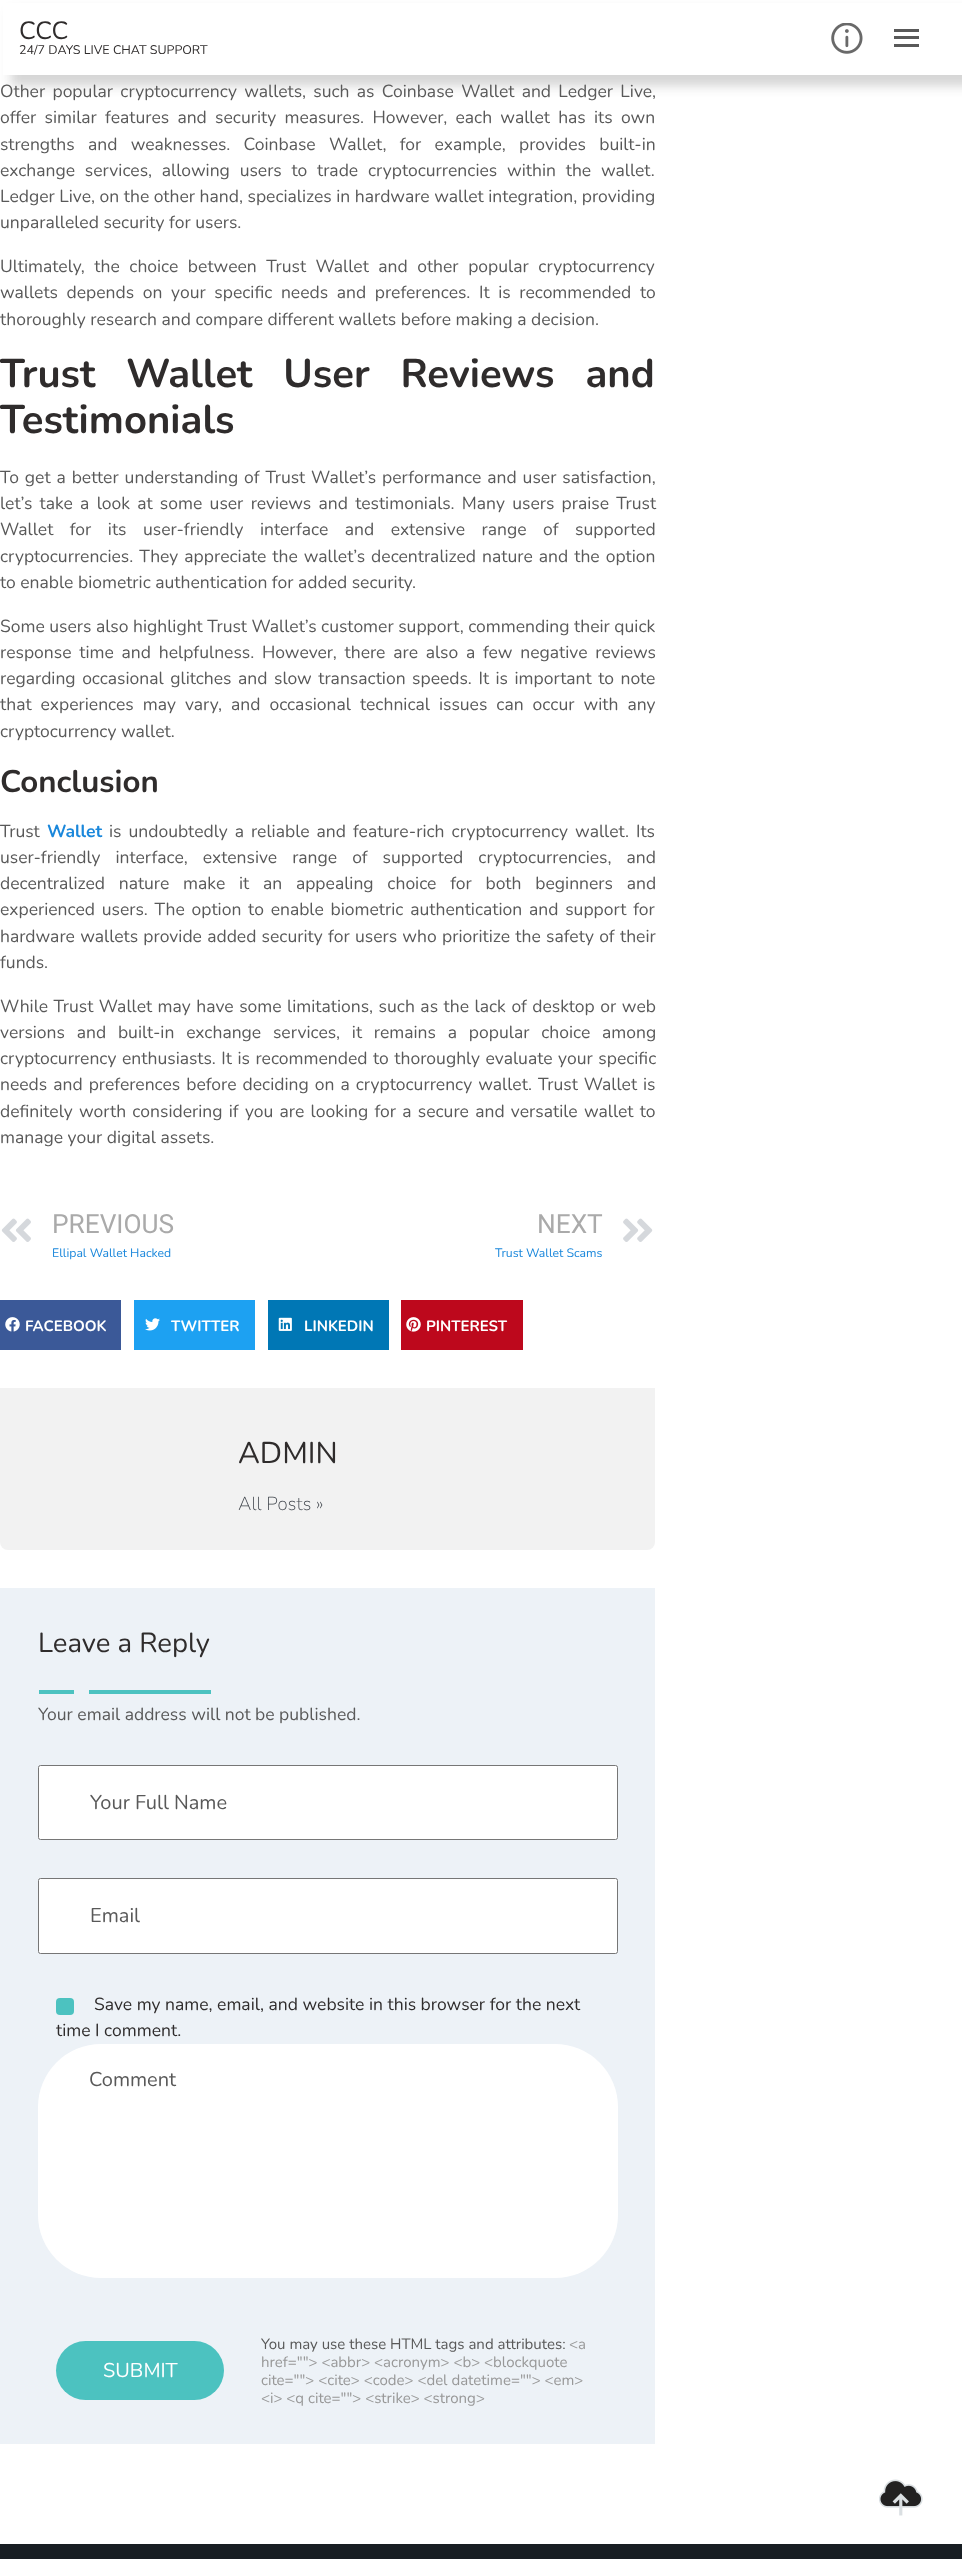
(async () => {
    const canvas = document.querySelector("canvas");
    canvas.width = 962;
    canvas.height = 2559;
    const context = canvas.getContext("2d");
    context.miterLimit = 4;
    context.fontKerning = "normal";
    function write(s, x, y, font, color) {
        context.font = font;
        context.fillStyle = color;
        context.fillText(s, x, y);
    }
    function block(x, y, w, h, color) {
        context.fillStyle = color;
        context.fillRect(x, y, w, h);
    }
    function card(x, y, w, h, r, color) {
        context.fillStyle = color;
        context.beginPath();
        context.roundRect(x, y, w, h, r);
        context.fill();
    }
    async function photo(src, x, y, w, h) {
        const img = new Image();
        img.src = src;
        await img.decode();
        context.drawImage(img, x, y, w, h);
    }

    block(0, 0, 962, 2559, "rgb(255, 255, 255)");
    context.fillStyle = "rgba(47, 44, 44, 0.2)";
    context.filter = "blur(5.5px)";
    context.beginPath();
    context.rect(11, 11, 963, 75);
    context.fill();
    context.filter = "none";
    block(3, 3, 959, 72, "rgb(255, 255, 255)");
    write("CCC", 19, 39, "25px Nunito", "rgb(47, 44, 44)");
    write("24/7 DAYS LIVE CHAT SUPPORT", 19, 54, "12.5px Nunito", "rgb(47, 44, 44)");
    await photo("media/1.png", 831, 23, 32, 31);
    block(894, 44, 25, 3, "rgb(89, 89, 89)");
    block(894, 29, 25, 3, "rgb(89, 89, 89)");
    block(894, 36, 25, 3, "rgb(89, 89, 89)");
    context.wordSpacing = "2.75px";
    write("Other popular cryptocurrency wallets, such as Coinbase Wallet and Ledger Live,", 0, 97, "17.5px Nunito", "rgb(89, 89, 89)");
    context.wordSpacing = "3.75px";
    write("offer similar features and security measures. However, each wallet has its own", 0, 123, "17.5px Nunito", "rgb(89, 89, 89)");
    context.wordSpacing = "8.75px";
    write("strengths and weaknesses. Coinbase Wallet, for example, provides built-in", 0, 150, "17.5px Nunito", "rgb(89, 89, 89)");
    context.wordSpacing = "5.25px";
    write("exchange services, allowing users to trade cryptocurrencies within the wallet.", 0, 176, "17.5px Nunito", "rgb(89, 89, 89)");
    context.wordSpacing = "0px";
    write("Ledger Live, on the other hand, specializes in hardware wallet integration, providing", 0, 202, "17.5px Nunito", "rgb(89, 89, 89)");
    write("unparalleled security for users.", 0, 228, "17.5px Nunito", "rgb(89, 89, 89)");
    context.wordSpacing = "5px";
    write("Ultimately, the choice between Trust Wallet and other popular cryptocurrency", 0, 272, "17.5px Nunito", "rgb(89, 89, 89)");
    context.wordSpacing = "4.1px";
    write("wallets depends on your specific needs and preferences. It is recommended to", 0, 298, "17.5px Nunito", "rgb(89, 89, 89)");
    context.wordSpacing = "0px";
    write("thoroughly research and compare different wallets before making a decision.", 0, 325, "17.5px Nunito", "rgb(89, 89, 89)");
    context.wordSpacing = "20px";
    write("Trust Wallet User Reviews and", 0, 387, "bold 40px Nunito", "rgb(47, 44, 44)");
    context.wordSpacing = "0px";
    write("Testimonials", 0, 433, "bold 40px Nunito", "rgb(47, 44, 44)");
    context.wordSpacing = "1.4px";
    write("To get a better understanding of Trust Wallet’s performance and user satisfaction,", 0, 483, "17.5px Nunito", "rgb(89, 89, 89)");
    context.wordSpacing = "2.75px";
    write("let’s take a look at some user reviews and testimonials. Many users praise Trust", 0, 509, "17.5px Nunito", "rgb(89, 89, 89)");
    context.wordSpacing = "12px";
    write("Wallet for its user-friendly interface and extensive range of supported", 0, 535, "17.5px Nunito", "rgb(89, 89, 89)");
    context.wordSpacing = "1.5px";
    write("cryptocurrencies. They appreciate the wallet’s decentralized nature and the option", 0, 562, "17.5px Nunito", "rgb(89, 89, 89)");
    context.wordSpacing = "0px";
    write("to enable biometric authentication for added security.", 0, 588, "17.5px Nunito", "rgb(89, 89, 89)");
    write("Some users also highlight Trust Wallet’s customer support, commending their quick", 0, 632, "17.5px Nunito", "rgb(89, 89, 89)");
    context.wordSpacing = "3.25px";
    write("response time and helpfulness. However, there are also a few negative reviews", 0, 658, "17.5px Nunito", "rgb(89, 89, 89)");
    context.wordSpacing = "2px";
    write("regarding occasional glitches and slow transaction speeds. It is important to note", 0, 684, "17.5px Nunito", "rgb(89, 89, 89)");
    context.wordSpacing = "4.5px";
    write("that experiences may vary, and occasional technical issues can occur with any", 0, 710, "17.5px Nunito", "rgb(89, 89, 89)");
    context.wordSpacing = "0px";
    write("cryptocurrency wallet.", 0, 737, "17.5px Nunito", "rgb(89, 89, 89)");
    write("Conclusion", 0, 792, "bold 31.25px Nunito", "rgb(47, 44, 44)");
    write("Trust", 0, 837, "17.5px Nunito", "rgb(89, 89, 89)");
    write("Wallet", 47, 837, "bold 17.5px Nunito", "rgb(26, 135, 219)");
    context.wordSpacing = "2.5px";
    write("is undoubtedly a reliable and feature-rich cryptocurrency wallet. Its", 109, 837, "17.5px Nunito", "rgb(89, 89, 89)");
    context.wordSpacing = "10.5px";
    write("user-friendly interface, extensive range of supported cryptocurrencies, and", 0, 863, "17.5px Nunito", "rgb(89, 89, 89)");
    context.wordSpacing = "9.25px";
    write("decentralized nature make it an appealing choice for both beginners and", 0, 889, "17.5px Nunito", "rgb(89, 89, 89)");
    context.wordSpacing = "2.25px";
    write("experienced users. The option to enable biometric authentication and support for", 0, 915, "17.5px Nunito", "rgb(89, 89, 89)");
    context.wordSpacing = "0.75px";
    write("hardware wallets provide added security for users who prioritize the safety of their", 0, 942, "17.5px Nunito", "rgb(89, 89, 89)");
    context.wordSpacing = "0px";
    write("funds.", 0, 968, "17.5px Nunito", "rgb(89, 89, 89)");
    context.wordSpacing = "1px";
    write("While Trust Wallet may have some limitations, such as the lack of desktop or web", 0, 1012, "17.5px Nunito", "rgb(89, 89, 89)");
    context.wordSpacing = "7.25px";
    write("versions and built-in exchange services, it remains a popular choice among", 0, 1038, "17.5px Nunito", "rgb(89, 89, 89)");
    context.wordSpacing = "1px";
    write("cryptocurrency enthusiasts. It is recommended to thoroughly evaluate your specific", 0, 1064, "17.5px Nunito", "rgb(89, 89, 89)");
    context.wordSpacing = "1.5px";
    write("needs and preferences before deciding on a cryptocurrency wallet. Trust Wallet is", 0, 1090, "17.5px Nunito", "rgb(89, 89, 89)");
    context.wordSpacing = "1.75px";
    write("definitely worth considering if you are looking for a secure and versatile wallet to", 0, 1117, "17.5px Nunito", "rgb(89, 89, 89)");
    context.wordSpacing = "0px";
    write("manage your digital assets.", 0, 1143, "17.5px Nunito", "rgb(89, 89, 89)");
    await photo("media/2.png", 1, 1218, 30, 24);
    write("PREVIOUS", 52, 1233, "26.25px Roboto", "rgb(170, 170, 170)");
    write("Ellipal Wallet Hacked", 52, 1257, "12.25px Nunito", "rgb(26, 135, 219)");
    write("NEXT", 537, 1233, "26.25px Roboto", "rgb(170, 170, 170)");
    write("Trust Wallet Scams", 495, 1257, "12.25px Nunito", "rgb(26, 135, 219)");
    await photo("media/3.png", 623, 1218, 30, 24);
    block(0, 1300, 121, 50, "rgb(59, 89, 152)");
    await photo("media/4.png", 5, 1317, 15, 15);
    write("FACEBOOK", 25, 1331, "bold 15px Nunito", "rgb(255, 255, 255)");
    block(134, 1300, 121, 50, "rgb(29, 161, 242)");
    await photo("media/5.png", 145, 1318, 15, 13);
    write("TWITTER", 171, 1331, "bold 15px Nunito", "rgb(255, 255, 255)");
    block(268, 1300, 121, 50, "rgb(0, 119, 181)");
    await photo("media/6.png", 278, 1317, 14, 14);
    write("LINKEDIN", 304, 1331, "bold 15px Nunito", "rgb(255, 255, 255)");
    block(401, 1300, 122, 50, "rgb(189, 8, 28)");
    await photo("media/7.png", 406, 1317, 15, 15);
    write("PINTEREST", 426, 1331, "bold 15px Nunito", "rgb(255, 255, 255)");
    context.fillStyle = "rgb(242, 242, 242)";
    context.beginPath();
    context.roundRect(0, 1388, 655, 162, [0, 0, 8, 8]);
    context.fill();
    write("ADMIN", 238, 1463, "30px Nunito", "rgb(47, 44, 44)");
    write("All Posts »", 238, 1510, "200 18.75px Nunito", "rgb(63, 68, 75)");
    block(0, 1588, 655, 856, "rgb(237, 242, 247)");
    write("Leave a Reply", 38, 1652, "27.5px Nunito", "rgb(47, 44, 44)");
    block(39, 1690, 35, 4, "rgb(76, 194, 192)");
    block(89, 1690, 122, 4, "rgb(76, 194, 192)");
    write("Your email address will not be published.", 38, 1720, "17.5px Nunito", "rgb(89, 89, 89)");
    context.fillStyle = "rgb(255, 255, 255)";
    context.beginPath();
    context.roundRect(38.5, 1765.5, 579, 74, 2);
    context.fill();
    context.strokeStyle = "rgb(118, 118, 118)";
    context.stroke();
    write("Your Full Name", 90, 1809, "20px Nunito", "rgb(89, 89, 89)");
    context.fillStyle = "rgb(255, 255, 255)";
    context.beginPath();
    context.roundRect(38.5, 1878.5, 579, 75, 2);
    context.fill();
    context.stroke();
    write("Email", 90, 1922, "20px Nunito", "rgb(89, 89, 89)");
    card(56, 1998, 18, 17, 4, "rgb(76, 194, 192)");
    write("Save my name, email, and website in this browser for the next", 94, 2010, "17.5px Nunito", "rgb(47, 44, 44)");
    write("time I comment.", 56, 2036, "17.5px Nunito", "rgb(47, 44, 44)");
    card(38, 2044, 580, 234, 63, "rgb(255, 255, 255)");
    write("Comment", 89, 2086, "20px Nunito", "rgb(89, 89, 89)");
    card(56, 2341, 168, 59, 29.5, "rgb(76, 194, 192)");
    write("SUBMIT", 103, 2377, "20px Nunito", "rgb(255, 255, 255)");
    write("You may use these HTML tags and attributes:", 261, 2349, "15px Nunito", "rgb(89, 89, 89)");
    write("<a", 569, 2349, "15px Nunito", "rgb(152, 152, 152)");
    write("href=\"\"> <abbr> <acronym> <b> <blockquote", 261, 2367, "15px Nunito", "rgb(152, 152, 152)");
    write("cite=\"\"> <cite> <code> <del datetime=\"\"> <em>", 261, 2385, "15px Nunito", "rgb(152, 152, 152)");
    write("<i> <q cite=\"\"> <strike> <strong>", 261, 2403, "15px Nunito", "rgb(152, 152, 152)");
    block(0, 2544, 962, 15, "rgb(24, 30, 35)");
    await photo("media/8.png", 879, 2479, 44, 37);
})();
